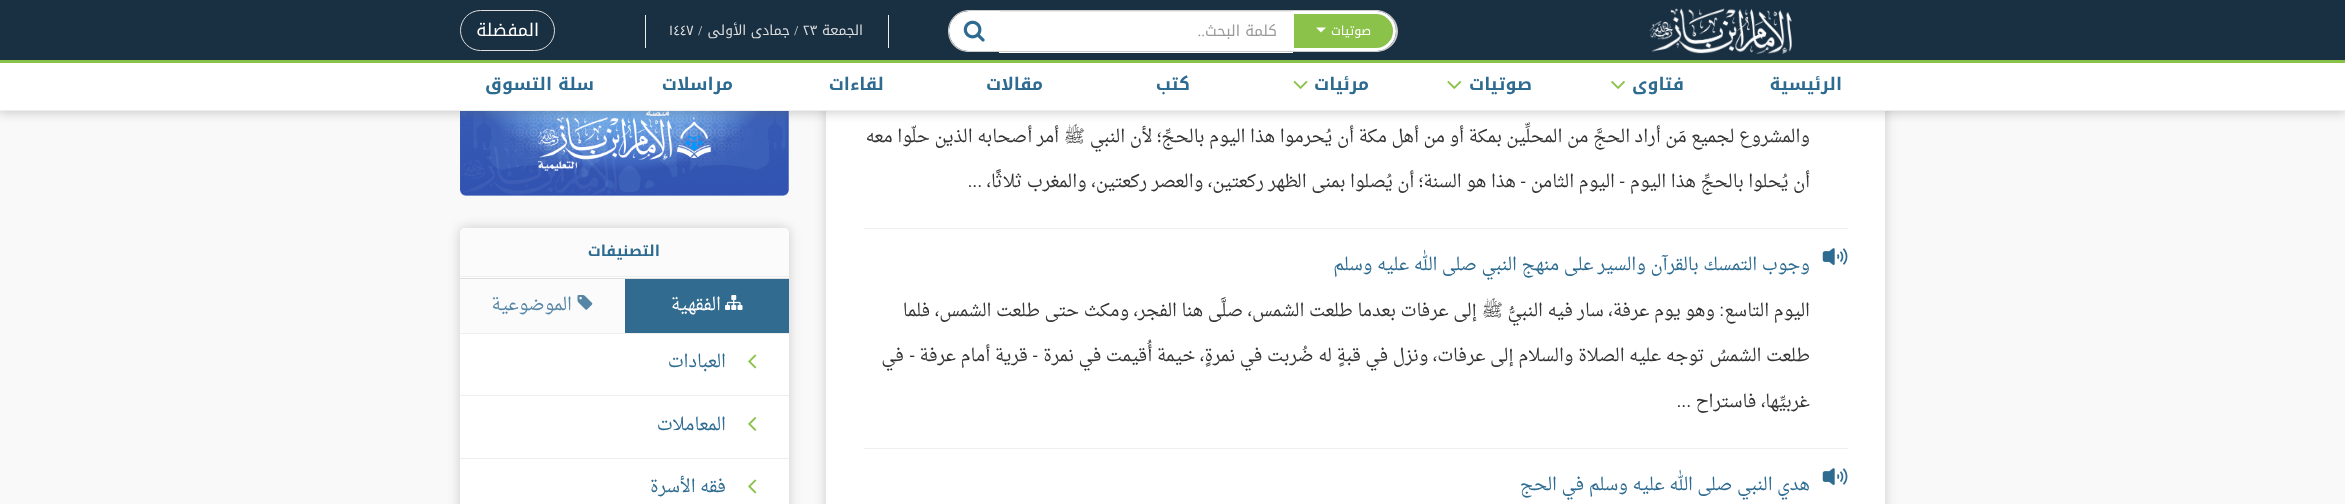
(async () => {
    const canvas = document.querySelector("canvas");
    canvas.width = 2345;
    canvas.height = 504;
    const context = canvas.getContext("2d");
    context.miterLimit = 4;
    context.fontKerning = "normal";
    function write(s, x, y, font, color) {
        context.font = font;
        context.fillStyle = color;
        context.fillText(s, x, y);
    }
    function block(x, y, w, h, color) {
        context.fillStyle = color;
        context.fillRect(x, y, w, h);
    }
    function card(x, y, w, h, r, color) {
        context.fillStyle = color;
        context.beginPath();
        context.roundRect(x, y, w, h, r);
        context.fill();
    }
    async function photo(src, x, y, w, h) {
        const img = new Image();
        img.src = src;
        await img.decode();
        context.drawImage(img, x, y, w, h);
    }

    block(0, 0, 2345, 504, "rgb(249, 249, 249)");
    context.fillStyle = "rgba(136, 136, 136, 0.4)";
    context.filter = "blur(6px)";
    context.beginPath();
    context.roundRect(826, 43, 1059, 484, 5);
    context.fill();
    context.filter = "none";
    block(826, 111, 1059, 393, "rgb(255, 255, 255)");
    await photo("media/7.png", 460, 111, 329, 85);
    context.fillStyle = "rgba(100, 100, 100, 0.3)";
    context.filter = "blur(5.5px)";
    context.beginPath();
    context.rect(-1, -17, 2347, 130);
    context.fill();
    context.filter = "none";
    block(0, 0, 2345, 60, "rgb(25, 48, 67)");
    block(0, 60, 2345, 3, "rgb(139, 195, 74)");
    await photo("media/1.png", 1649, 8, 143, 46);
    context.beginPath();
    context.roundRect(1292.5, 12.5, 102, 37, [0, 18.5, 18.5, 0]);
    context.fill();
    context.strokeStyle = "rgb(255, 255, 255)";
    context.lineWidth = 3;
    context.stroke();
    context.fillStyle = "rgb(204, 204, 204)";
    context.beginPath();
    context.moveTo(1291, 10);
    context.lineTo(1376, 10);
    context.bezierCurveTo(1388, 10, 1398, 20, 1398, 31);
    context.bezierCurveTo(1398, 43, 1388, 52, 1376, 52);
    context.lineTo(1291, 52);
    context.closePath();
    context.moveTo(1291, 11);
    context.lineTo(1376, 11);
    context.bezierCurveTo(1387, 11, 1396, 20, 1396, 31);
    context.bezierCurveTo(1396, 42, 1387, 51, 1376, 51);
    context.lineTo(1291, 51);
    context.closePath();
    context.fill("evenodd");
    context.direction = "rtl";
    write("صوتيات", 1371, 35, "12.5px Noto Kufi Arabic", "rgb(255, 255, 255)");
    context.beginPath();
    context.moveTo(1316, 27.5);
    context.lineTo(1326, 27.5);
    context.lineTo(1321, 32.5);
    context.closePath();
    context.fill();
    block(999, 12, 294, 41, "rgb(255, 255, 255)");
    block(999, 11, 294, 1, "rgb(236, 236, 236)");
    block(999, 10, 294, 1, "rgb(204, 204, 204)");
    block(999, 51, 294, 1, "rgb(204, 204, 204)");
    write("كلمة البحث", 1277, 36, "15px Noto Kufi Arabic", "rgb(153, 153, 153)");
    write("..", 1205, 36, "15px Liberation Serif", "rgb(153, 153, 153)");
    context.fillStyle = "rgb(255, 255, 255)";
    context.beginPath();
    context.roundRect(949, 11, 51, 40, [20, 0, 0, 20]);
    context.fill();
    context.fillStyle = "rgb(204, 204, 204)";
    context.beginPath();
    context.moveTo(969, 10);
    context.lineTo(1000, 10);
    context.lineTo(1000, 52);
    context.lineTo(969, 52);
    context.bezierCurveTo(957, 52, 948, 43, 948, 31);
    context.bezierCurveTo(948, 20, 957, 10, 969, 10);
    context.closePath();
    context.moveTo(969, 11);
    context.lineTo(1000, 11);
    context.lineTo(1000, 51);
    context.lineTo(969, 51);
    context.bezierCurveTo(958, 51, 949, 42, 949, 31);
    context.bezierCurveTo(949, 20, 958, 11, 969, 11);
    context.closePath();
    context.fill("evenodd");
    await photo("media/2.png", 963, 20, 22, 22);
    block(888, 15, 1, 33, "rgb(238, 238, 238)");
    block(645, 15, 1, 33, "rgb(238, 238, 238)");
    write("الجمعة", 863, 35, "13.75px Noto Kufi Arabic", "rgb(221, 221, 221)");
    context.direction = "ltr";
    write("٢٣", 803, 35, "13.75px Noto Kufi Arabic", "rgb(221, 221, 221)");
    context.direction = "rtl";
    write("/", 798, 35, "13.75px Liberation Serif", "rgb(221, 221, 221)");
    write("جمادى الأولى", 790, 35, "13.75px Noto Kufi Arabic", "rgb(221, 221, 221)");
    write("/", 702, 35, "13.75px Liberation Serif", "rgb(221, 221, 221)");
    context.direction = "ltr";
    write("١٤٤٧", 669, 35, "13.75px Noto Kufi Arabic", "rgb(221, 221, 221)");
    context.beginPath();
    context.roundRect(460.5, 10.5, 94, 40, 20);
    context.strokeStyle = "rgb(221, 221, 221)";
    context.lineWidth = 1;
    context.stroke();
    context.direction = "rtl";
    write("المفضلة", 539, 36, "17.5px Noto Kufi Arabic", "rgb(255, 255, 255)");
    block(0, 63, 2345, 47, "rgb(255, 255, 255)");
    block(0, 110, 2345, 1, "rgb(238, 238, 238)");
    write("الرئيسية", 1842, 90, "bold 17.5px Noto Kufi Arabic", "rgb(46, 107, 145)");
    write("فتاوى", 1684, 90, "bold 17.5px Noto Kufi Arabic", "rgb(46, 107, 145)");
    await photo("media/3.png", 1611, 80, 14, 9);
    write("صوتيات", 1532, 90, "bold 17.5px Noto Kufi Arabic", "rgb(46, 107, 145)");
    await photo("media/4.png", 1447, 80, 15, 9);
    write("مرئيات", 1369, 90, "bold 17.5px Noto Kufi Arabic", "rgb(46, 107, 145)");
    await photo("media/5.png", 1293, 80, 15, 9);
    write("كتب", 1190, 90, "bold 17.5px Noto Kufi Arabic", "rgb(46, 107, 145)");
    write("مقالات", 1043, 90, "bold 17.5px Noto Kufi Arabic", "rgb(46, 107, 145)");
    write("لقاءات", 884, 90, "bold 17.5px Noto Kufi Arabic", "rgb(46, 107, 145)");
    write("مراسلات", 733, 90, "bold 17.5px Noto Kufi Arabic", "rgb(46, 107, 145)");
    write("سلة التسوق", 594, 90, "bold 17.5px Noto Kufi Arabic", "rgb(46, 107, 145)");
    block(864, 228, 984, 1, "rgb(238, 238, 238)");
    write("والمشروع لجميع مَن أراد الحجَّ من المحلِّين بمكة أو من أهل مكة أن يُحرموا هذا اليوم بالحجِّ؛ لأن النبي", 1810, 142, "17.5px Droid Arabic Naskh", "rgb(51, 51, 51)");
    write("ﷺ", 1085, 142, "17.5px Lateef", "rgb(51, 51, 51)");
    write("أمر أصحابه الذين حلّوا معه", 1059, 142, "17.5px Droid Arabic Naskh", "rgb(51, 51, 51)");
    write("أن يُحلوا بالحجِّ هذا اليوم", 1810, 187, "17.5px Droid Arabic Naskh", "rgb(51, 51, 51)");
    write("-", 1625, 187, "17.5px Liberation Sans", "rgb(51, 51, 51)");
    write("اليوم الثامن", 1615, 187, "17.5px Droid Arabic Naskh", "rgb(51, 51, 51)");
    write("-", 1526, 187, "17.5px Liberation Sans", "rgb(51, 51, 51)");
    write("هذا هو السنة؛ أن يُصلوا بمنى الظهر ركعتين، والعصر ركعتين، والمغرب ثلاثًا،", 1516, 187, "17.5px Droid Arabic Naskh", "rgb(51, 51, 51)");
    write("...", 982, 187, "17.5px Liberation Sans", "rgb(51, 51, 51)");
    block(864, 448, 984, 1, "rgb(238, 238, 238)");
    await photo("media/6.png", 1822, 248, 26, 17);
    write("وجوب التمسك بالقرآن والسير على منهج النبي صلى الله عليه وسلم", 1810, 270, "17.5px Droid Arabic Naskh", "rgb(46, 107, 145)");
    write("اليوم التاسع", 1810, 316, "17.5px Droid Arabic Naskh", "rgb(51, 51, 51)");
    write(":", 1724, 316, "17.5px Liberation Sans", "rgb(51, 51, 51)");
    write("وهو يوم عرفة، سار فيه النبيُّ", 1715, 316, "17.5px Droid Arabic Naskh", "rgb(51, 51, 51)");
    write("ﷺ", 1503, 316, "17.5px Lateef", "rgb(51, 51, 51)");
    write("إلى عرفات بعدما طلعت الشمس، صلَّى هنا الفجر، ومكث حتى طلعت الشمس، فلما", 1477, 316, "17.5px Droid Arabic Naskh", "rgb(51, 51, 51)");
    write("طلعت الشمسُ توجه عليه الصلاة والسلام إلى عرفات، ونزل في قبةٍ له ضُربت في نمرةٍ، خيمة أُقيمت في نمرة", 1810, 361, "17.5px Droid Arabic Naskh", "rgb(51, 51, 51)");
    write("-", 1038, 361, "17.5px Liberation Sans", "rgb(51, 51, 51)");
    write("قرية أمام عرفة", 1028, 361, "17.5px Droid Arabic Naskh", "rgb(51, 51, 51)");
    write("-", 915, 361, "17.5px Liberation Sans", "rgb(51, 51, 51)");
    write("في", 904, 361, "17.5px Droid Arabic Naskh", "rgb(51, 51, 51)");
    write("غربيِّها، فاستراح", 1810, 407, "17.5px Droid Arabic Naskh", "rgb(51, 51, 51)");
    write("...", 1691, 407, "17.5px Liberation Sans", "rgb(51, 51, 51)");
    await photo("media/6.png", 1822, 468, 26, 17);
    write("هدي النبي صلى الله عليه وسلم في الحج", 1810, 490, "17.5px Droid Arabic Naskh", "rgb(46, 107, 145)");
    context.fillStyle = "rgba(136, 136, 136, 0.4)";
    context.filter = "blur(6px)";
    context.beginPath();
    context.roundRect(460, 228, 329, 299, 5);
    context.fill();
    context.filter = "none";
    card(460, 228, 329, 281, 5, "rgb(255, 255, 255)");
    block(460, 276, 329, 1, "rgb(238, 238, 238)");
    context.fillStyle = "rgb(251, 251, 251)";
    context.beginPath();
    context.roundRect(460, 228, 329, 48, [5, 5, 0, 0]);
    context.fill();
    write("التصنيفات", 660, 256, "bold 15px Noto Kufi Arabic", "rgb(46, 107, 145)");
    block(460, 278, 329, 1, "rgb(221, 221, 221)");
    block(625, 279, 164, 54, "rgb(50, 107, 144)");
    await photo("media/8.png", 725, 295, 18, 15);
    write("الفقهية", 721, 310, "17.5px Droid Arabic Naskh", "rgb(255, 255, 255)");
    block(460, 279, 164, 54, "rgb(251, 251, 251)");
    await photo("media/9.png", 577, 295, 16, 15);
    write("الموضوعية", 572, 310, "17.5px Droid Arabic Naskh", "rgb(85, 134, 165)");
    block(460, 333, 329, 1, "rgb(238, 238, 238)");
    await photo("media/10.png", 748, 354, 9, 15);
    write("العبادات", 726, 367, "17.5px Droid Arabic Naskh", "rgb(46, 107, 145)");
    block(460, 395, 329, 1, "rgb(238, 238, 238)");
    await photo("media/11.png", 748, 417, 9, 14);
    write("المعاملات", 726, 430, "17.5px Droid Arabic Naskh", "rgb(46, 107, 145)");
    block(460, 458, 329, 1, "rgb(238, 238, 238)");
    await photo("media/10.png", 748, 479, 9, 15);
    write("فقه الأسرة", 726, 492, "17.5px Droid Arabic Naskh", "rgb(46, 107, 145)");
})();
